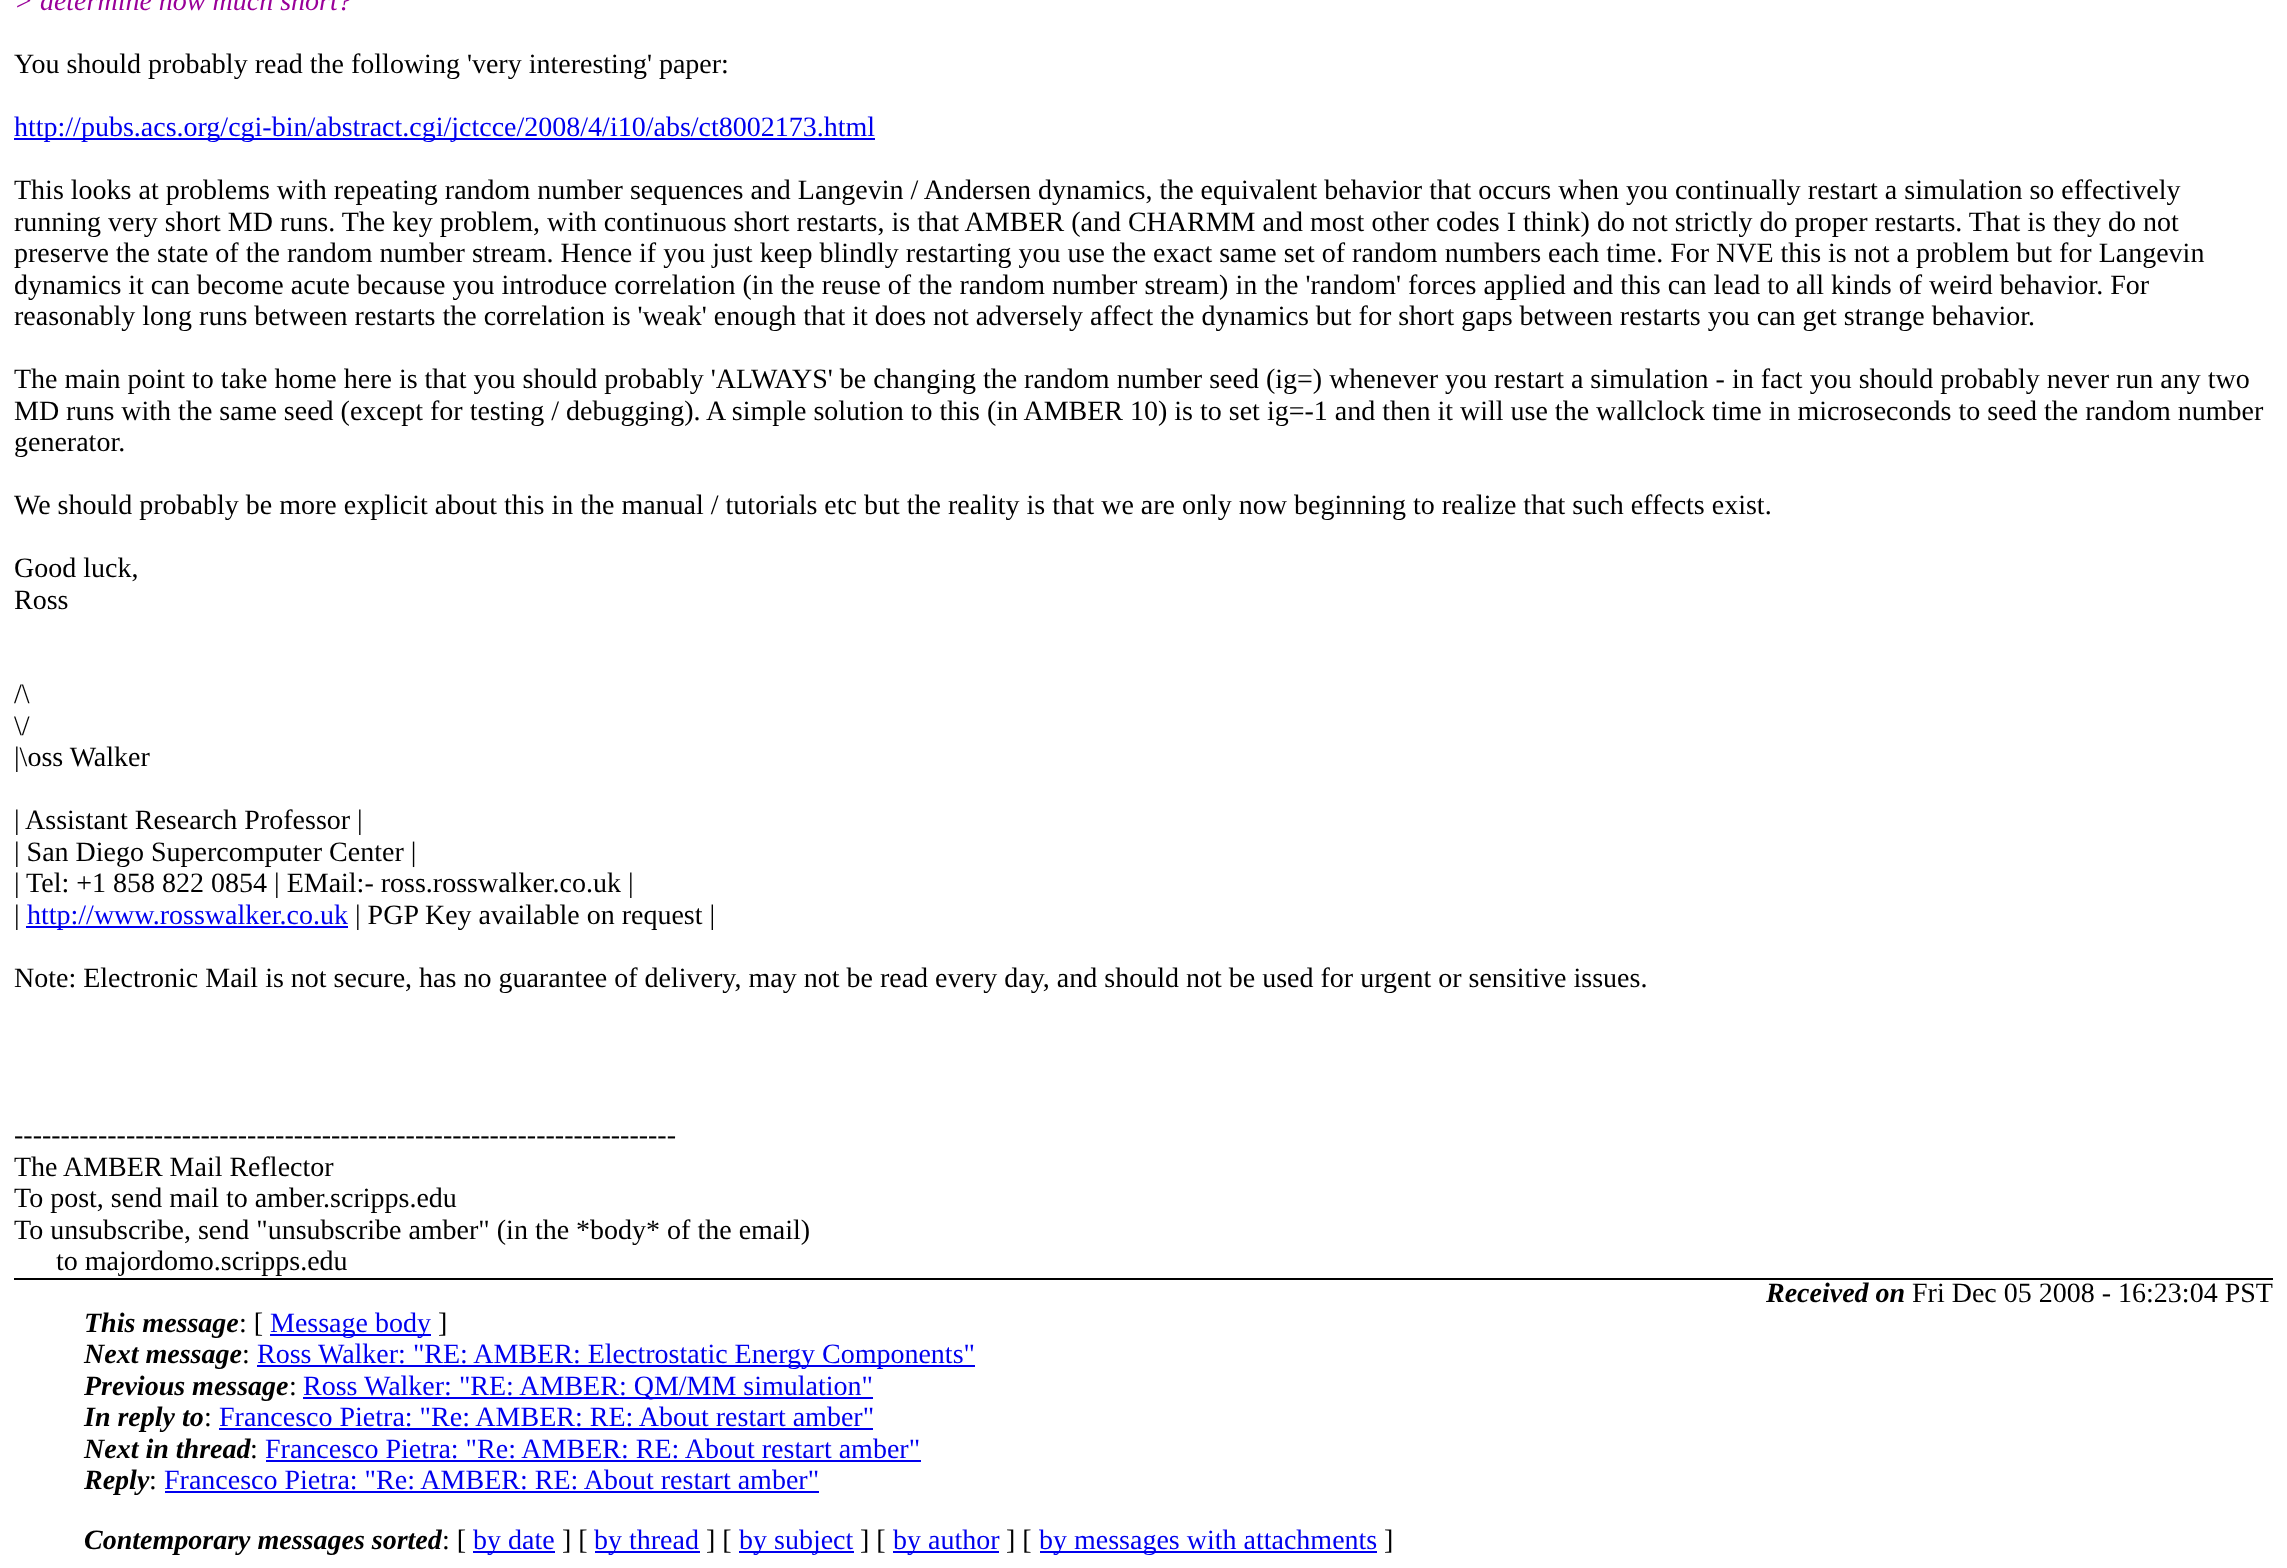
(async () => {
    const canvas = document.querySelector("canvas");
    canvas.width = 2287;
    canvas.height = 1568;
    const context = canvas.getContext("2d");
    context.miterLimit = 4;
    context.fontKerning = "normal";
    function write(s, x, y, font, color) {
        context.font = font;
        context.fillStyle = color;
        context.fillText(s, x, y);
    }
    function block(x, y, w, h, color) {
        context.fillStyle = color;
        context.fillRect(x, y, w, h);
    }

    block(0, 0, 2287, 1568, "rgb(255, 255, 255)");
    write("> determine how much short?", 14, 10, "italic 28px Liberation Serif", "rgb(153, 0, 153)");
    write("You should probably read the following 'very interesting' paper:", 14, 73, "28px Liberation Serif", "rgb(0, 0, 0)");
    block(14, 138, 861, 2, "rgb(0, 0, 238)");
    write("http://pubs.acs.org/cgi-bin/abstract.cgi/jctcce/2008/4/i10/abs/ct8002173.html", 14, 136, "28px Liberation Serif", "rgb(0, 0, 238)");
    write("This looks at problems with repeating random number sequences and Langevin / Andersen dynamics, the equivalent behavior that occurs when you continually restart a simulation so effectively", 14, 199, "28px Liberation Serif", "rgb(0, 0, 0)");
    write("running very short MD runs. The key problem, with continuous short restarts, is that AMBER (and CHARMM and most other codes I think) do not strictly do proper restarts. That is they do not", 14, 231, "28px Liberation Serif", "rgb(0, 0, 0)");
    write("preserve the state of the random number stream. Hence if you just keep blindly restarting you use the exact same set of random numbers each time. For NVE this is not a problem but for Langevin", 14, 262, "28px Liberation Serif", "rgb(0, 0, 0)");
    write("dynamics it can become acute because you introduce correlation (in the reuse of the random number stream) in the 'random' forces applied and this can lead to all kinds of weird behavior. For", 14, 294, "28px Liberation Serif", "rgb(0, 0, 0)");
    write("reasonably long runs between restarts the correlation is 'weak' enough that it does not adversely affect the dynamics but for short gaps between restarts you can get strange behavior.", 14, 325, "28px Liberation Serif", "rgb(0, 0, 0)");
    write("The main point to take home here is that you should probably 'ALWAYS' be changing the random number seed (ig=) whenever you restart a simulation - in fact you should probably never run any two", 14, 388, "28px Liberation Serif", "rgb(0, 0, 0)");
    write("MD runs with the same seed (except for testing / debugging). A simple solution to this (in AMBER 10) is to set ig=-1 and then it will use the wallclock time in microseconds to seed the random number", 14, 420, "28px Liberation Serif", "rgb(0, 0, 0)");
    write("generator.", 14, 451, "28px Liberation Serif", "rgb(0, 0, 0)");
    write("We should probably be more explicit about this in the manual / tutorials etc but the reality is that we are only now beginning to realize that such effects exist.", 14, 514, "28px Liberation Serif", "rgb(0, 0, 0)");
    write("Good luck,", 14, 577, "28px Liberation Serif", "rgb(0, 0, 0)");
    write("Ross", 14, 609, "28px Liberation Serif", "rgb(0, 0, 0)");
    write("/\\", 14, 703, "28px Liberation Serif", "rgb(0, 0, 0)");
    write("\\/", 14, 735, "28px Liberation Serif", "rgb(0, 0, 0)");
    write("|\\oss Walker", 14, 766, "28px Liberation Serif", "rgb(0, 0, 0)");
    write("| Assistant Research Professor |", 14, 829, "28px Liberation Serif", "rgb(0, 0, 0)");
    write("| San Diego Supercomputer Center |", 14, 861, "28px Liberation Serif", "rgb(0, 0, 0)");
    write("| Tel: +1 858 822 0854 | EMail:- ross.rosswalker.co.uk |", 14, 892, "28px Liberation Serif", "rgb(0, 0, 0)");
    write("|", 14, 924, "28px Liberation Serif", "rgb(0, 0, 0)");
    block(26, 926, 322, 2, "rgb(0, 0, 238)");
    write("http://www.rosswalker.co.uk", 27, 924, "28px Liberation Serif", "rgb(0, 0, 238)");
    write("| PGP Key available on request |", 355, 924, "28px Liberation Serif", "rgb(0, 0, 0)");
    write("Note: Electronic Mail is not secure, has no guarantee of delivery, may not be read every day, and should not be used for urgent or sensitive issues.", 14, 987, "28px Liberation Serif", "rgb(0, 0, 0)");
    write("-----------------------------------------------------------------------", 14, 1144, "28px Liberation Serif", "rgb(0, 0, 0)");
    write("The AMBER Mail Reflector", 14, 1176, "28px Liberation Serif", "rgb(0, 0, 0)");
    write("To post, send mail to amber.scripps.edu", 14, 1207, "28px Liberation Serif", "rgb(0, 0, 0)");
    write("To unsubscribe, send \"unsubscribe amber\" (in the *body* of the email)", 14, 1239, "28px Liberation Serif", "rgb(0, 0, 0)");
    write("to majordomo.scripps.edu", 56, 1270, "28px Liberation Serif", "rgb(0, 0, 0)");
    write("Received on", 1766, 1302, "italic bold 28px Liberation Serif", "rgb(0, 0, 0)");
    write("Fri Dec 05 2008 - 16:23:04 PST", 1912, 1302, "28px Liberation Serif", "rgb(0, 0, 0)");
    block(14, 1278, 2259, 2, "rgb(0, 0, 0)");
    write("This message", 84, 1332, "italic bold 28px Liberation Serif", "rgb(0, 0, 0)");
    write(": [", 239, 1332, "28px Liberation Serif", "rgb(0, 0, 0)");
    block(270, 1334, 161, 2, "rgb(0, 0, 238)");
    write("Message body", 270, 1332, "28px Liberation Serif", "rgb(0, 0, 238)");
    write("]", 438, 1332, "28px Liberation Serif", "rgb(0, 0, 0)");
    write("Next message", 84, 1363, "italic bold 28px Liberation Serif", "rgb(0, 0, 0)");
    write(":", 242, 1363, "28px Liberation Serif", "rgb(0, 0, 0)");
    block(257, 1365, 718, 2, "rgb(0, 0, 238)");
    write("Ross Walker: \"RE: AMBER: Electrostatic Energy Components\"", 257, 1363, "28px Liberation Serif", "rgb(0, 0, 238)");
    write("Previous message", 84, 1395, "italic bold 28px Liberation Serif", "rgb(0, 0, 0)");
    write(":", 289, 1395, "28px Liberation Serif", "rgb(0, 0, 0)");
    block(303, 1397, 570, 2, "rgb(0, 0, 238)");
    write("Ross Walker: \"RE: AMBER: QM/MM simulation\"", 303, 1395, "28px Liberation Serif", "rgb(0, 0, 238)");
    write("In reply to", 84, 1426, "italic bold 28px Liberation Serif", "rgb(0, 0, 0)");
    write(":", 204, 1426, "28px Liberation Serif", "rgb(0, 0, 0)");
    write("Francesco Pietra: \"Re: AMBER: RE: About restart amber\"", 219, 1426, "28px Liberation Serif", "rgb(0, 0, 238)");
    block(219, 1428, 654, 2, "rgb(0, 0, 238)");
    write("Next in thread", 84, 1458, "italic bold 28px Liberation Serif", "rgb(0, 0, 0)");
    write(":", 250, 1458, "28px Liberation Serif", "rgb(0, 0, 0)");
    write("Francesco Pietra: \"Re: AMBER: RE: About restart amber\"", 265, 1458, "28px Liberation Serif", "rgb(0, 0, 238)");
    block(266, 1460, 655, 2, "rgb(0, 0, 238)");
    write("Reply", 84, 1489, "italic bold 28px Liberation Serif", "rgb(0, 0, 0)");
    write(":", 149, 1489, "28px Liberation Serif", "rgb(0, 0, 0)");
    write("Francesco Pietra: \"Re: AMBER: RE: About restart amber\"", 164, 1489, "28px Liberation Serif", "rgb(0, 0, 238)");
    block(165, 1491, 654, 2, "rgb(0, 0, 238)");
    write("Contemporary messages sorted", 84, 1549, "italic bold 28px Liberation Serif", "rgb(0, 0, 0)");
    write(": [", 442, 1549, "28px Liberation Serif", "rgb(0, 0, 0)");
    block(473, 1551, 82, 2, "rgb(0, 0, 238)");
    write("by date", 473, 1549, "28px Liberation Serif", "rgb(0, 0, 238)");
    write("] [", 562, 1549, "28px Liberation Serif", "rgb(0, 0, 0)");
    block(595, 1551, 105, 2, "rgb(0, 0, 238)");
    write("by thread", 594, 1549, "28px Liberation Serif", "rgb(0, 0, 238)");
    write("] [", 706, 1549, "28px Liberation Serif", "rgb(0, 0, 0)");
    block(739, 1551, 115, 2, "rgb(0, 0, 238)");
    write("by subject", 739, 1549, "28px Liberation Serif", "rgb(0, 0, 238)");
    write("] [", 860, 1549, "28px Liberation Serif", "rgb(0, 0, 0)");
    block(893, 1551, 106, 2, "rgb(0, 0, 238)");
    write("by author", 893, 1549, "28px Liberation Serif", "rgb(0, 0, 238)");
    write("] [", 1006, 1549, "28px Liberation Serif", "rgb(0, 0, 0)");
    block(1040, 1551, 337, 2, "rgb(0, 0, 238)");
    write("by messages with attachments", 1039, 1549, "28px Liberation Serif", "rgb(0, 0, 238)");
    write("]", 1384, 1549, "28px Liberation Serif", "rgb(0, 0, 0)");
})();
